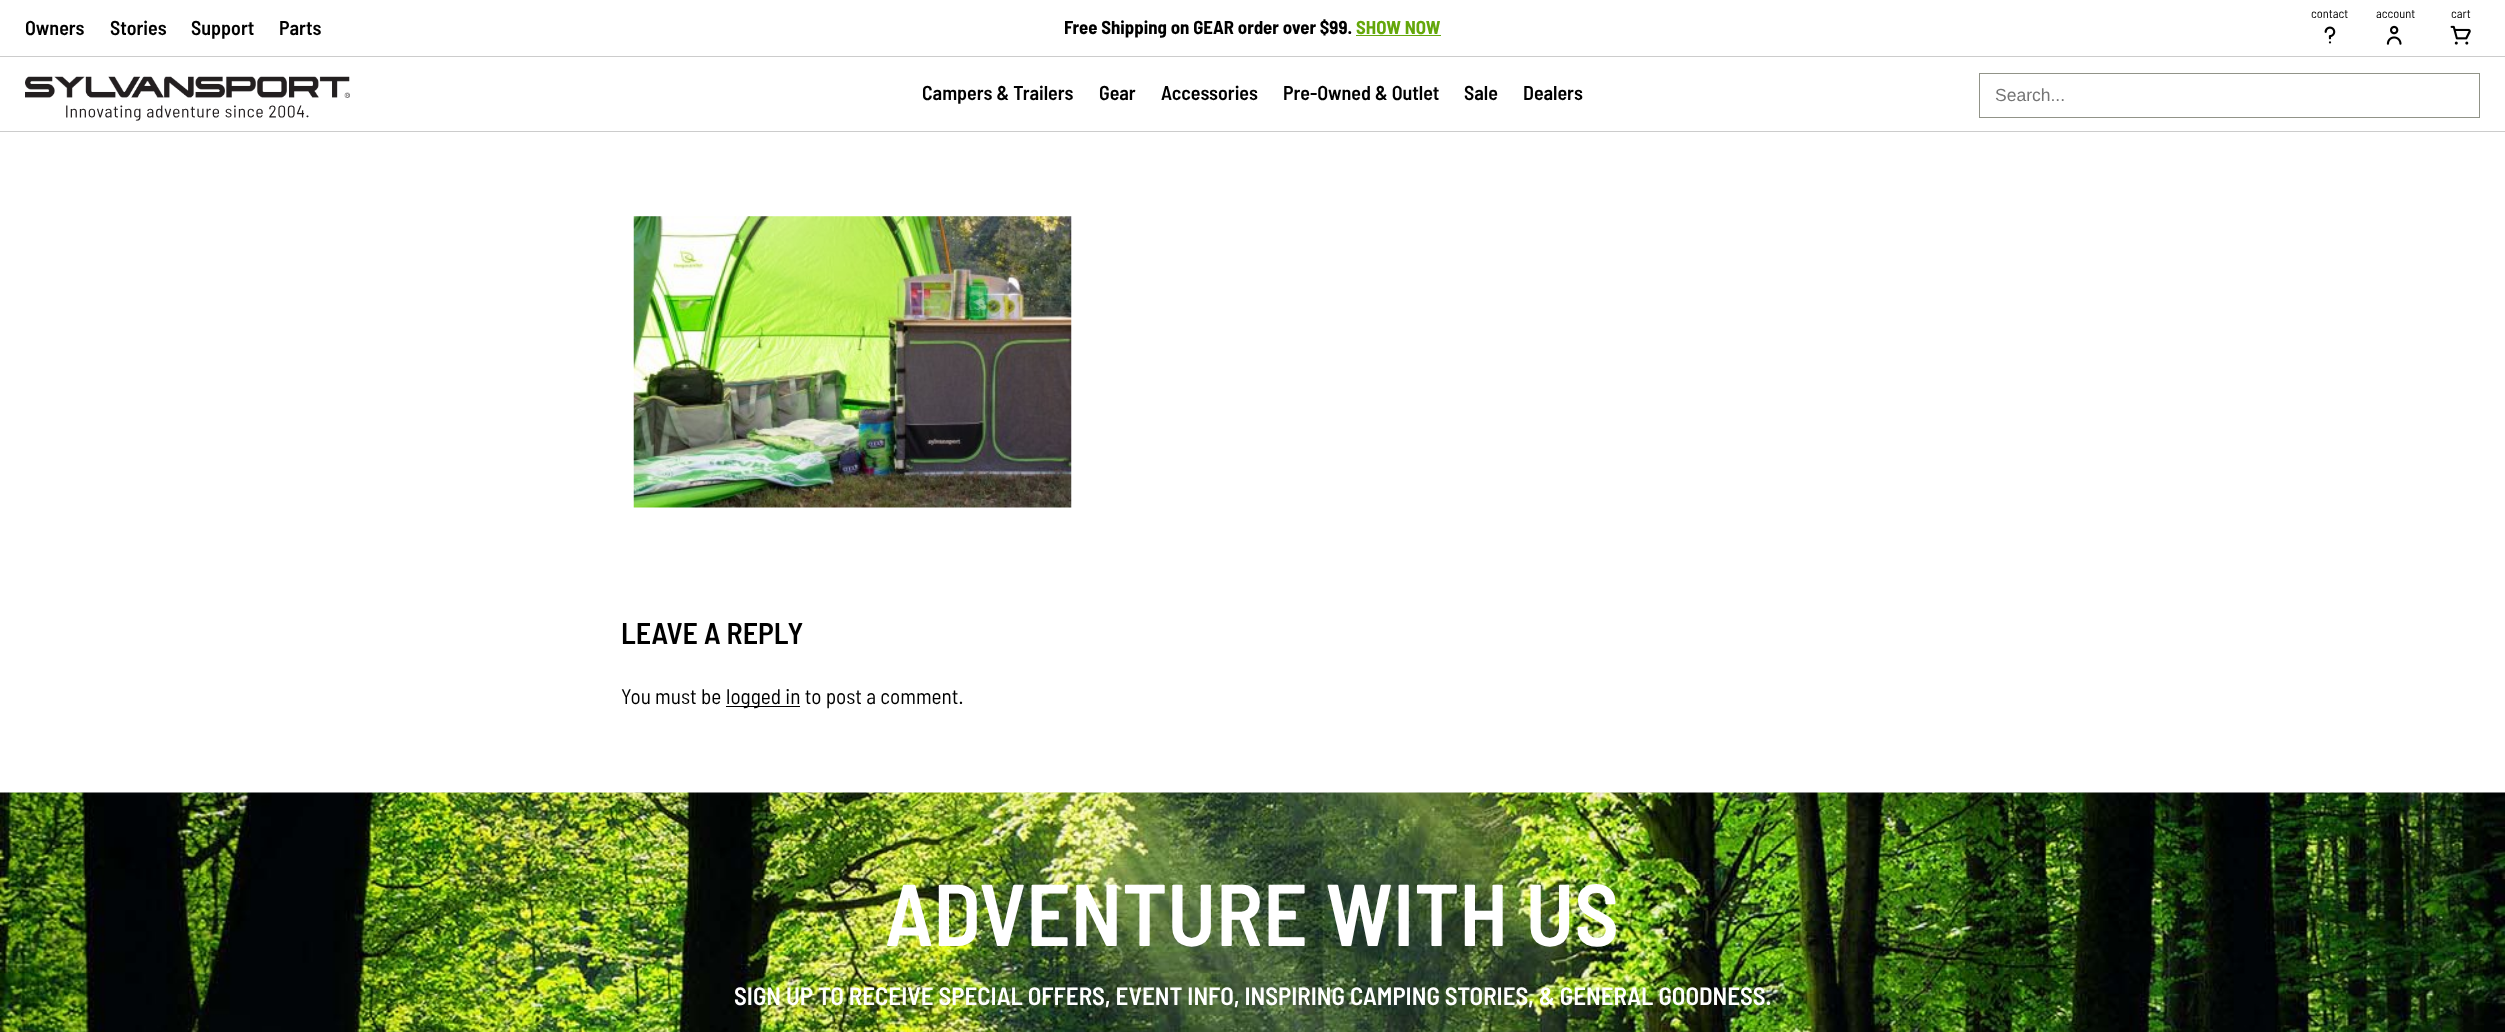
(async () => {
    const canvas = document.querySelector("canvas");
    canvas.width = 2505;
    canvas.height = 1032;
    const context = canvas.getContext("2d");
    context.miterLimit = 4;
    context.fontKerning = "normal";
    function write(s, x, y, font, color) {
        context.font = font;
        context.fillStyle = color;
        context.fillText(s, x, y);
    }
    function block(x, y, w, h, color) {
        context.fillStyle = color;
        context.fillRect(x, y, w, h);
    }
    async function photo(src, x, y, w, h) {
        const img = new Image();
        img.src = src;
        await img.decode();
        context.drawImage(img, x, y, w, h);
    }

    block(0, 0, 2505, 1032, "rgb(255, 255, 255)");
    block(0, 56, 2505, 1, "rgb(204, 204, 204)");
    write("contact", 2311, 18, "12.5px Barlow Semi Condensed", "rgb(0, 0, 0)");
    await photo("media/1.png", 2324, 26, 12, 18);
    write("account", 2376, 18, "12.5px Barlow Semi Condensed", "rgb(0, 0, 0)");
    await photo("media/2.png", 2386, 25, 16, 20);
    write("cart", 2451, 18, "12.5px Barlow Semi Condensed", "rgb(0, 0, 0)");
    await photo("media/3.png", 2450, 25, 21, 20);
    write("Owners", 25, 35, "600 20px Barlow Semi Condensed", "rgb(0, 0, 0)");
    write("Stories", 110, 35, "600 20px Barlow Semi Condensed", "rgb(0, 0, 0)");
    write("Support", 191, 35, "600 20px Barlow Semi Condensed", "rgb(0, 0, 0)");
    write("Parts", 279, 35, "600 20px Barlow Semi Condensed", "rgb(0, 0, 0)");
    write("Free Shipping on GEAR order over $99.", 1064, 34, "bold 18.75px Barlow Semi Condensed", "rgb(0, 0, 0)");
    write("SHOW NOW", 1356, 34, "bold 18.75px Barlow Semi Condensed", "rgb(100, 167, 11)");
    block(1356, 35, 85, 1, "rgb(100, 167, 11)");
    block(0, 131, 2505, 1, "rgb(204, 204, 204)");
    await photo("media/4.png", 25, 76, 325, 45);
    write("Campers & Trailers", 922, 100, "600 20px Barlow Semi Condensed", "rgb(0, 0, 0)");
    write("Gear", 1099, 100, "600 20px Barlow Semi Condensed", "rgb(0, 0, 0)");
    write("Accessories", 1161, 100, "600 20px Barlow Semi Condensed", "rgb(0, 0, 0)");
    write("Pre-Owned & Outlet", 1283, 100, "600 20px Barlow Semi Condensed", "rgb(0, 0, 0)");
    write("Sale", 1464, 100, "600 20px Barlow Semi Condensed", "rgb(0, 0, 0)");
    write("Dealers", 1523, 100, "600 20px Barlow Semi Condensed", "rgb(0, 0, 0)");
    context.strokeStyle = "rgb(145, 147, 136)";
    context.strokeRect(1979.5, 73.5, 500, 44);
    write("Search...", 1995, 101, "17.5px Liberation Sans", "rgb(117, 117, 117)");
    await photo("media/5.png", 633, 216, 439, 292);
    write("LEAVE A REPLY", 621, 644, "600 30px Barlow Semi Condensed", "rgb(0, 0, 0)");
    write("You must be", 621, 704, "21.25px Barlow Semi Condensed", "rgb(0, 0, 0)");
    block(726, 706, 74, 1, "rgb(0, 0, 0)");
    write("logged in to post a comment.", 726, 704, "21.25px Barlow Semi Condensed", "rgb(0, 0, 0)");
    await photo("media/6.png", 0, 792, 2505, 240);
    write("ADVENTURE WITH US", 885, 946, "600 87.5px Barlow Semi Condensed", "rgb(255, 255, 255)");
    write("SIGN UP TO RECEIVE SPECIAL OFFERS, EVENT INFO, INSPIRING CAMPING STORIES, & GENERAL GOODNESS.", 734, 1005, "600 25px Barlow Semi Condensed", "rgb(255, 255, 255)");
})();
